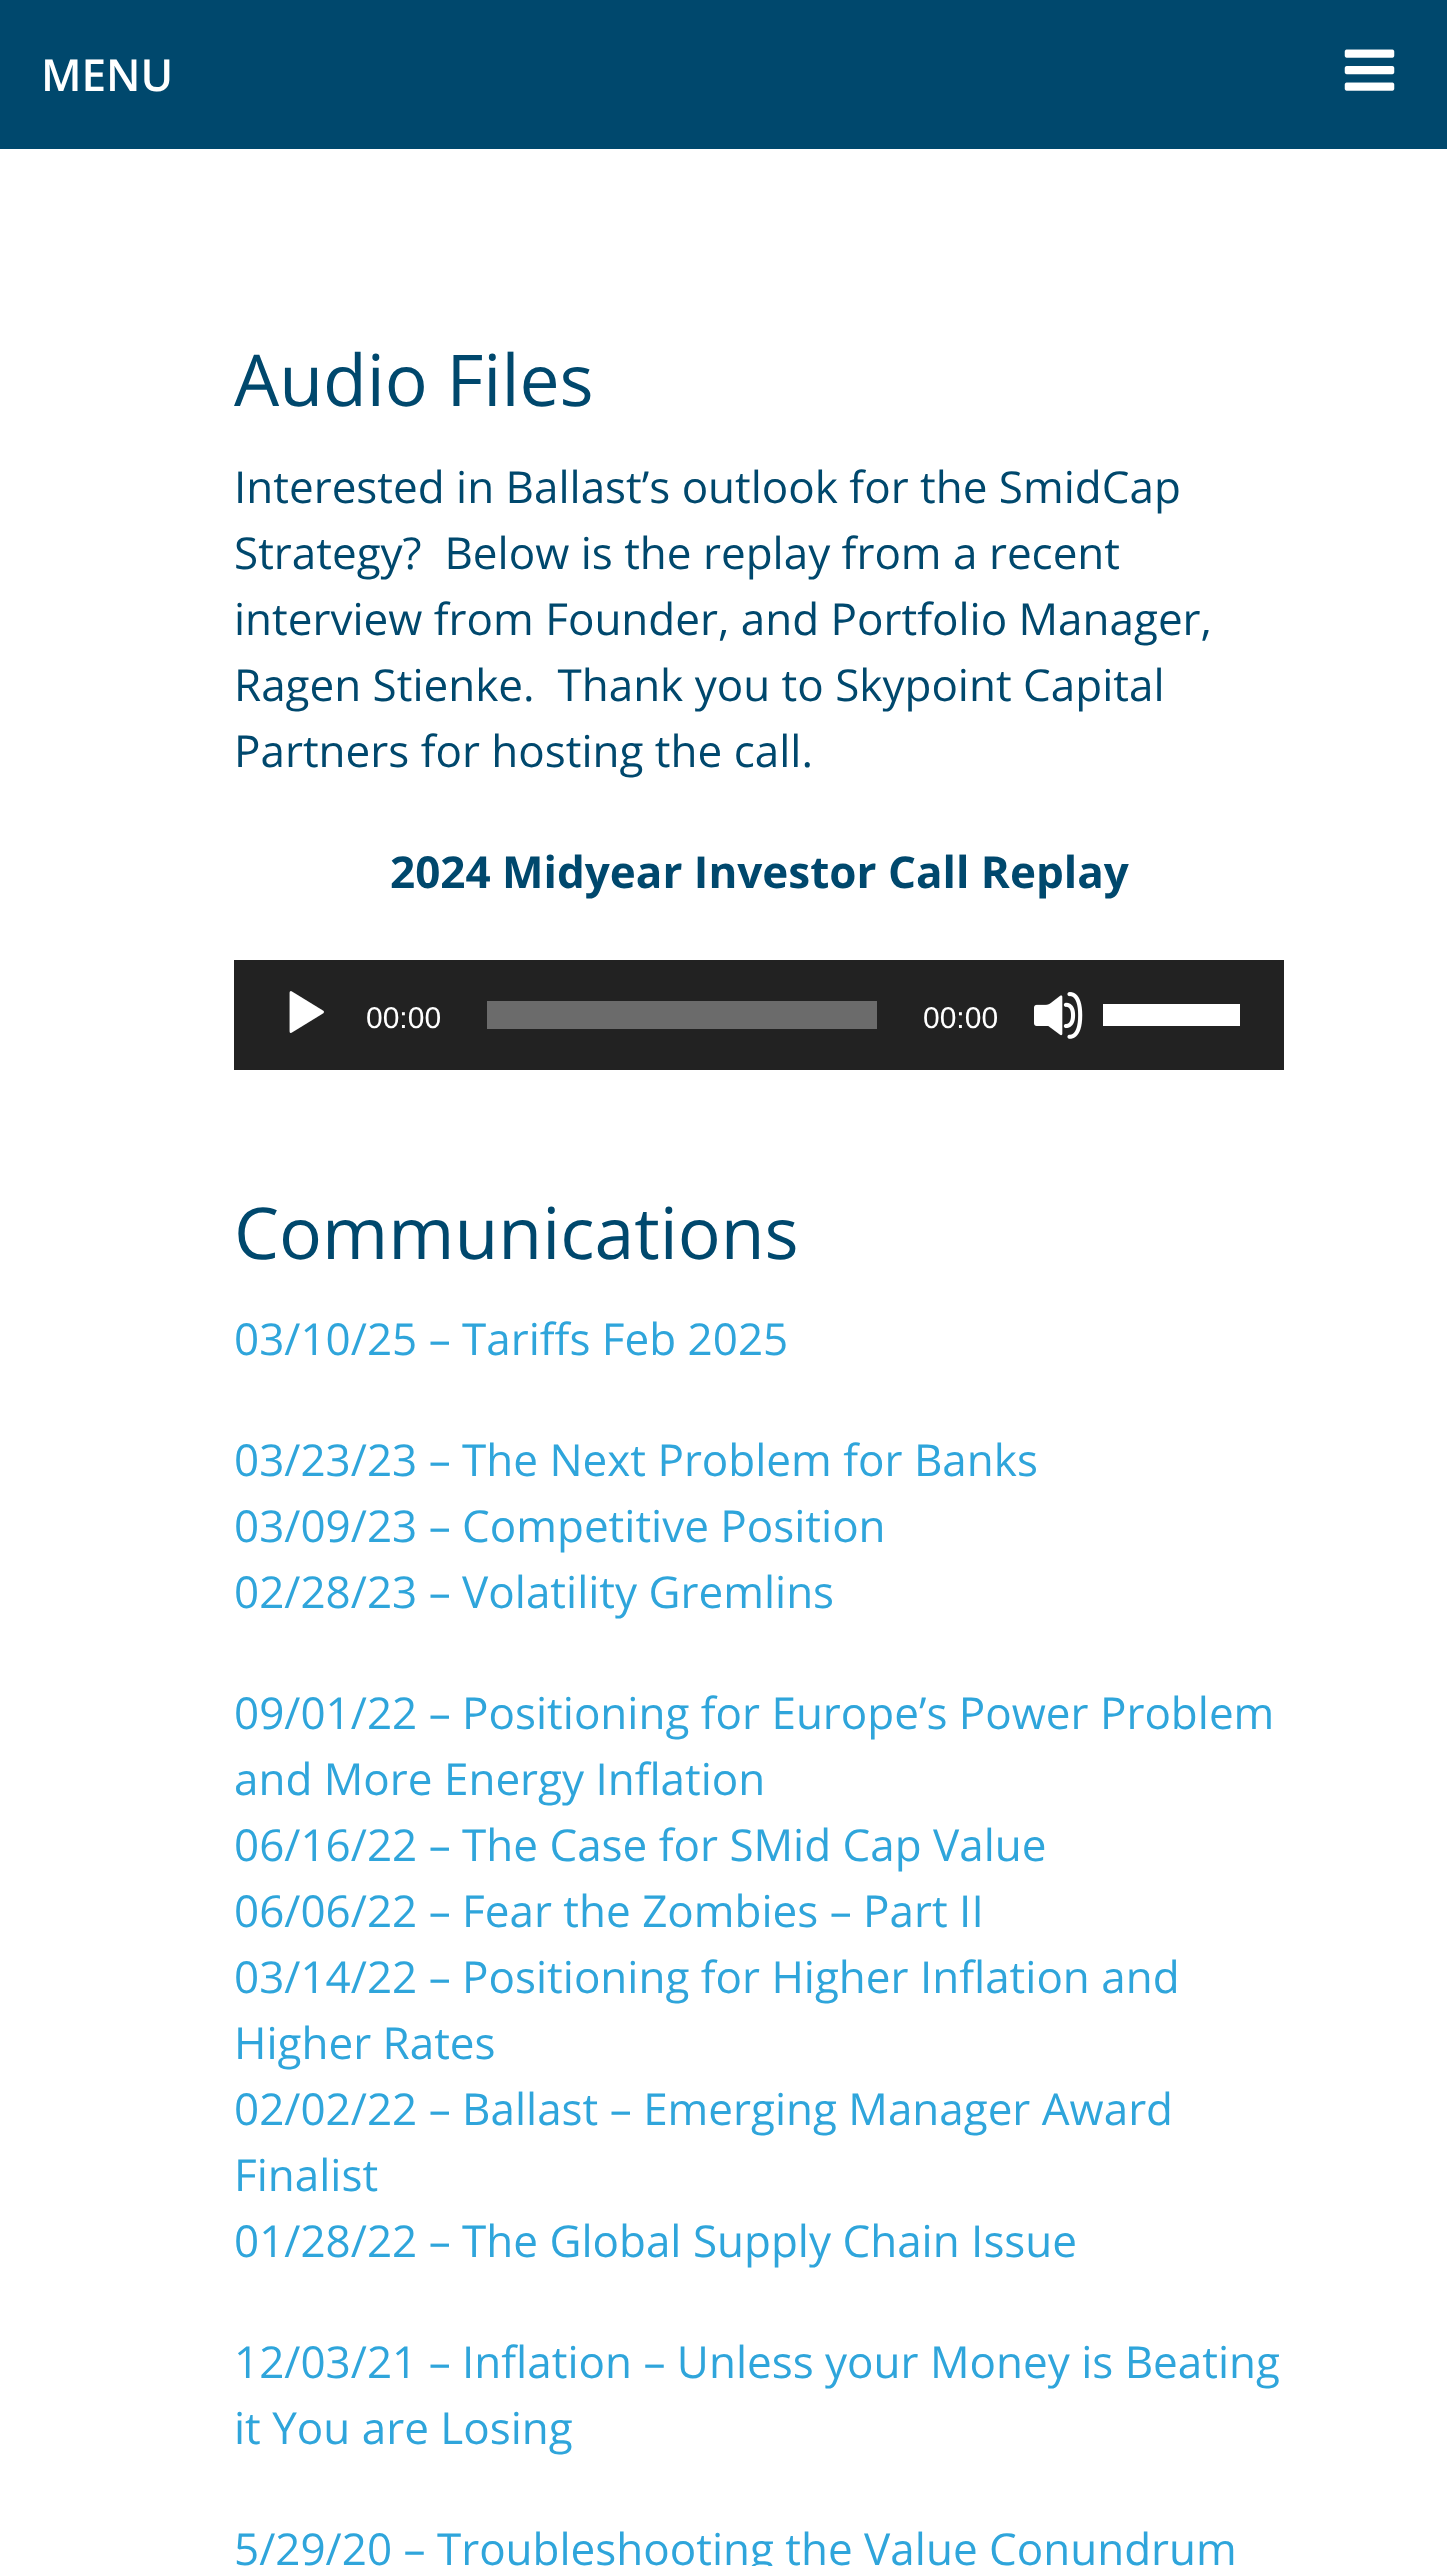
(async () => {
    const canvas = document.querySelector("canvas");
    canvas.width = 1447;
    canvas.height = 2566;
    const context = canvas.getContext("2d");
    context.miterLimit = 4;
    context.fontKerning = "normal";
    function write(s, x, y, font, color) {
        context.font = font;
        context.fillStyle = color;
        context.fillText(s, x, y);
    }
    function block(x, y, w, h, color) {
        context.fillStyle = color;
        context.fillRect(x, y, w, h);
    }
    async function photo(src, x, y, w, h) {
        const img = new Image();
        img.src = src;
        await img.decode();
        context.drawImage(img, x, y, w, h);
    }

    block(0, 0, 1447, 2566, "rgb(255, 255, 255)");
    block(0, 0, 1447, 149, "rgb(0, 72, 109)");
    write("MENU", 41, 91, "600 44px Open Sans", "rgb(255, 255, 255)");
    await photo("media/1.png", 1344, 49, 51, 42);
    write("Audio Files", 234, 406, "71.5px Open Sans", "rgb(0, 72, 109)");
    write("Interested in Ballast’s outlook for the SmidCap", 234, 503, "44px Open Sans", "rgb(0, 72, 109)");
    write("Strategy?  Below is the replay from a recent", 234, 569, "44px Open Sans", "rgb(0, 72, 109)");
    write("interview from Founder, and Portfolio Manager,", 234, 635, "44px Open Sans", "rgb(0, 72, 109)");
    write("Ragen Stienke.  Thank you to Skypoint Capital", 234, 701, "44px Open Sans", "rgb(0, 72, 109)");
    write("Partners for hosting the call.", 234, 767, "44px Open Sans", "rgb(0, 72, 109)");
    write("2024 Midyear Investor Call Replay", 390, 888, "bold 44px Open Sans", "rgb(0, 72, 109)");
    block(234, 960, 1050, 110, "rgb(34, 34, 34)");
    await photo("media/2.png", 289, 991, 35, 42);
    write("00:00", 366, 1028, "30px Liberation Sans", "rgb(255, 255, 255)");
    block(487, 1001, 390, 28, "rgb(107, 107, 107)");
    write("00:00", 923, 1028, "30px Liberation Sans", "rgb(255, 255, 255)");
    await photo("media/3.png", 1034, 992, 49, 47);
    block(1103, 1004, 137, 22, "rgb(255, 255, 255)");
    write("Communications", 234, 1259, "71.5px Open Sans", "rgb(0, 72, 109)");
    write("03/10/25 – Tariffs Feb 2025", 234, 1355, "44px Open Sans", "rgb(47, 165, 219)");
    write("03/23/23 – The Next Problem for Banks", 234, 1476, "44px Open Sans", "rgb(47, 165, 219)");
    write("03/09/23 – Competitive Position", 234, 1542, "44px Open Sans", "rgb(47, 165, 219)");
    write("02/28/23 – Volatility Gremlins", 234, 1608, "44px Open Sans", "rgb(47, 165, 219)");
    write("09/01/22 – Positioning for Europe’s Power Problem", 234, 1729, "44px Open Sans", "rgb(47, 165, 219)");
    write("and More Energy Inflation", 234, 1795, "44px Open Sans", "rgb(47, 165, 219)");
    write("06/16/22 – The Case for SMid Cap Value", 234, 1861, "44px Open Sans", "rgb(47, 165, 219)");
    write("06/06/22 – Fear the Zombies – Part II", 234, 1927, "44px Open Sans", "rgb(47, 165, 219)");
    write("03/14/22 – Positioning for Higher Inflation and", 234, 1993, "44px Open Sans", "rgb(47, 165, 219)");
    write("Higher Rates", 234, 2059, "44px Open Sans", "rgb(47, 165, 219)");
    write("02/02/22 – Ballast – Emerging Manager Award", 234, 2125, "44px Open Sans", "rgb(47, 165, 219)");
    write("Finalist", 234, 2191, "44px Open Sans", "rgb(47, 165, 219)");
    write("01/28/22 – The Global Supply Chain Issue", 234, 2257, "44px Open Sans", "rgb(47, 165, 219)");
    write("12/03/21 – Inflation – Unless your Money is Beating", 234, 2378, "44px Open Sans", "rgb(47, 165, 219)");
    write("it You are Losing", 234, 2444, "44px Open Sans", "rgb(47, 165, 219)");
    write("5/29/20 – Troubleshooting the Value Conundrum", 234, 2565, "44px Open Sans", "rgb(47, 165, 219)");
})();
